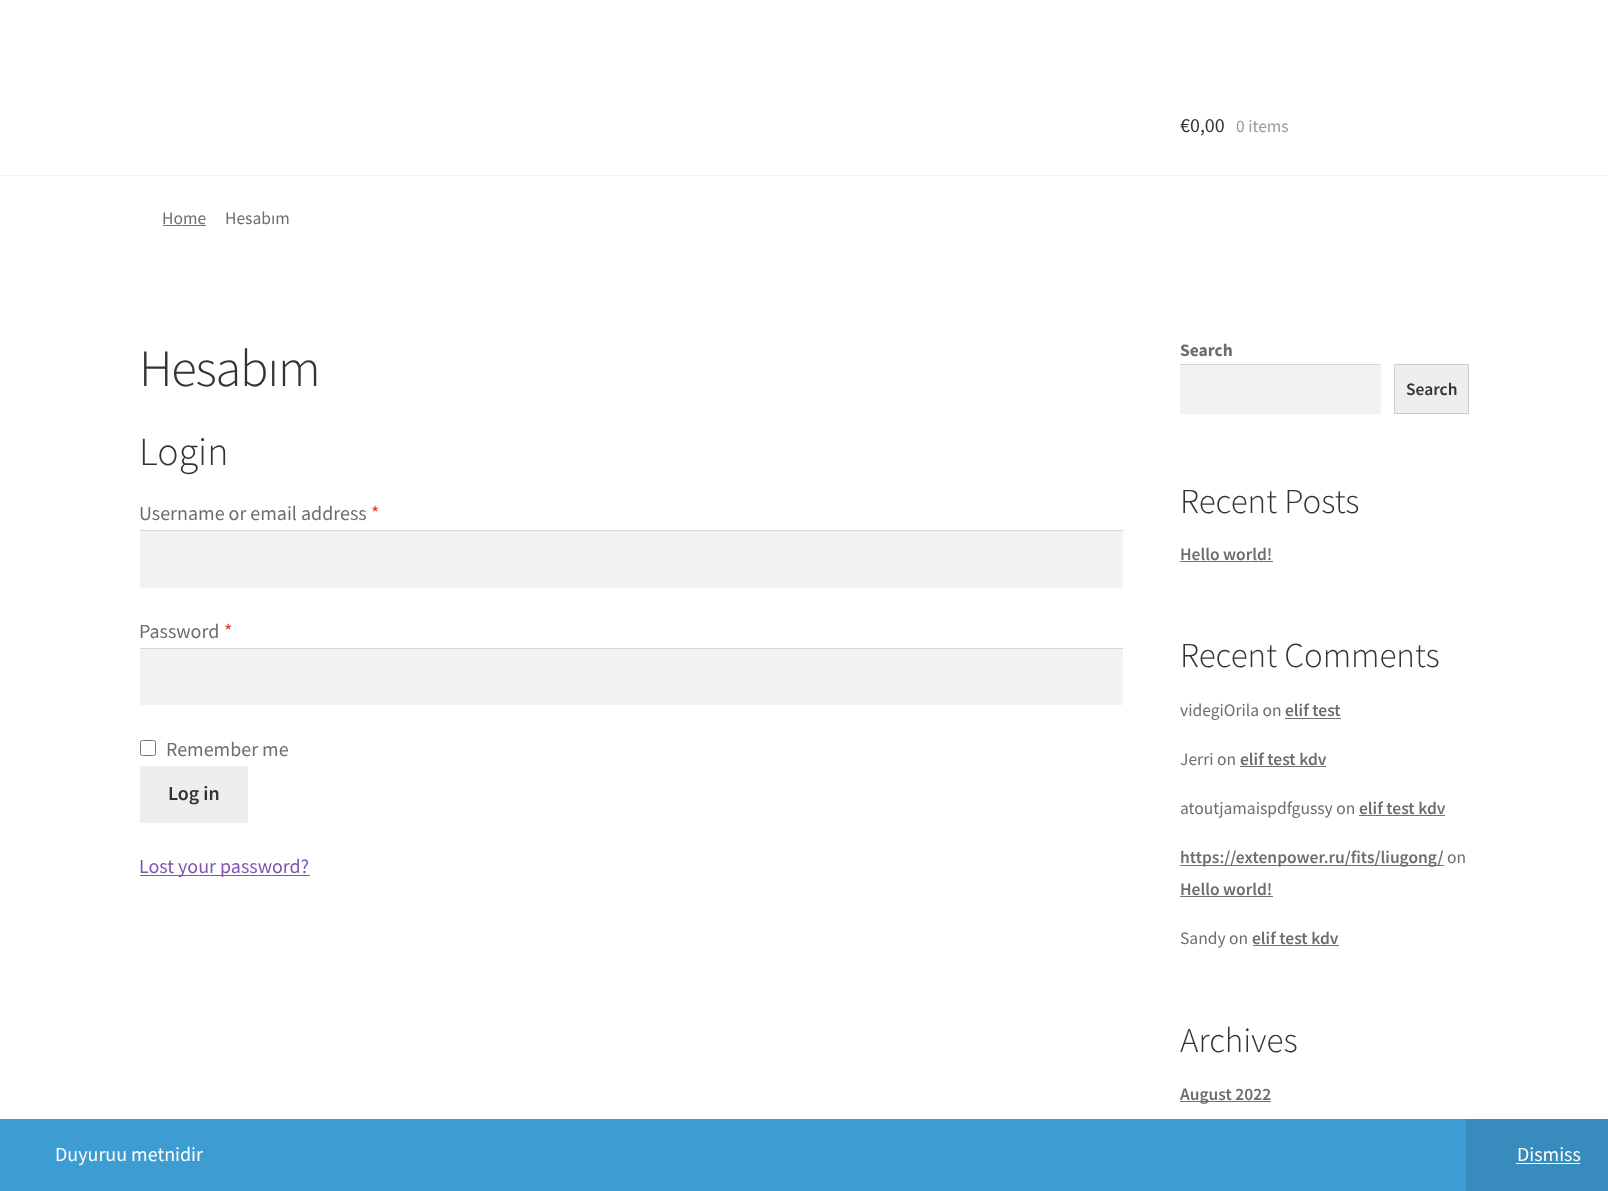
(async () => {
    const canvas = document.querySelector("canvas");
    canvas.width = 1608;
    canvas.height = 1191;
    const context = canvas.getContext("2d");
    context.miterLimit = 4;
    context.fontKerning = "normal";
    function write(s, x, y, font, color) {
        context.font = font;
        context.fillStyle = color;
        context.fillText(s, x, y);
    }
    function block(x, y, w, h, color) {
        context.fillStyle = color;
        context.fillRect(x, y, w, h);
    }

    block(0, 0, 1608, 1191, "rgb(255, 255, 255)");
    block(0, 175, 1608, 1, "rgb(240, 240, 240)");
    write("€0,00", 1180, 132, "20px Source Sans Pro", "rgb(51, 51, 51)");
    write("0 items", 1236, 132, "17.5px Source Sans Pro", "rgb(153, 153, 153)");
    write("Home", 162, 224, "17.5px Source Sans Pro", "rgb(109, 109, 109)");
    block(163, 225, 43, 1, "rgb(114, 114, 114)");
    write("Hesabım", 225, 224, "17.5px Source Sans Pro", "rgb(109, 109, 109)");
    context.letterSpacing = "-1.25px";
    write("Hesabım", 139, 386, "300 52.5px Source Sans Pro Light", "rgb(51, 51, 51)");
    context.letterSpacing = "0px";
    write("Login", 139, 465, "300 40px Source Sans Pro Light", "rgb(51, 51, 51)");
    write("Username or email address", 139, 520, "20px Source Sans Pro", "rgb(109, 109, 109)");
    write("*", 371, 520, "20px Source Sans Pro", "rgb(226, 64, 28)");
    block(140, 531, 983, 57, "rgb(242, 242, 242)");
    block(140, 530, 983, 1, "rgb(212, 212, 212)");
    write("Password", 139, 638, "20px Source Sans Pro", "rgb(109, 109, 109)");
    write("*", 224, 638, "20px Source Sans Pro", "rgb(226, 64, 28)");
    block(140, 649, 983, 56, "rgb(242, 242, 242)");
    block(140, 648, 983, 1, "rgb(212, 212, 212)");
    context.beginPath();
    context.roundRect(140.5, 740.5, 15, 15, 2);
    context.strokeStyle = "rgb(118, 118, 118)";
    context.stroke();
    write("Remember me", 166, 756, "20px Source Sans Pro", "rgb(109, 109, 109)");
    block(140, 766, 108, 57, "rgb(238, 238, 238)");
    write("Log in", 168, 800, "600 20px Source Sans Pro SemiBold", "rgb(51, 51, 51)");
    block(140, 875, 170, 1, "rgb(127, 84, 179)");
    write("Lost your password?", 139, 873, "20px Source Sans Pro", "rgb(127, 84, 179)");
    write("Search", 1180, 356, "bold 17.5px Source Sans Pro", "rgb(109, 109, 109)");
    block(1180, 365, 201, 49, "rgb(242, 242, 242)");
    block(1180, 364, 201, 1, "rgb(212, 212, 212)");
    context.fillStyle = "rgb(238, 238, 238)";
    context.beginPath();
    context.rect(1394.5, 364.5, 74, 49);
    context.fill();
    context.strokeStyle = "rgb(204, 204, 204)";
    context.stroke();
    write("Search", 1406, 395, "600 17.5px Source Sans Pro SemiBold", "rgb(51, 51, 51)");
    write("Recent Posts", 1180, 513, "300 35px Source Sans Pro Light", "rgb(51, 51, 51)");
    write("Hello world!", 1180, 560, "600 17.5px Source Sans Pro SemiBold", "rgb(109, 109, 109)");
    block(1180, 561, 93, 1, "rgb(114, 114, 114)");
    write("Recent Comments", 1180, 667, "300 35px Source Sans Pro Light", "rgb(51, 51, 51)");
    write("videgiOrila on", 1180, 716, "17.5px Source Sans Pro", "rgb(109, 109, 109)");
    write("elif test", 1285, 716, "600 17.5px Source Sans Pro SemiBold", "rgb(109, 109, 109)");
    block(1285, 718, 56, 1, "rgb(114, 114, 114)");
    write("Jerri on", 1180, 765, "17.5px Source Sans Pro", "rgb(109, 109, 109)");
    write("elif test kdv", 1240, 765, "600 17.5px Source Sans Pro SemiBold", "rgb(109, 109, 109)");
    block(1240, 766, 86, 1, "rgb(114, 114, 114)");
    write("atoutjamaispdfgussy on", 1180, 814, "17.5px Source Sans Pro", "rgb(109, 109, 109)");
    write("elif test kdv", 1359, 814, "600 17.5px Source Sans Pro SemiBold", "rgb(109, 109, 109)");
    block(1359, 815, 86, 1, "rgb(114, 114, 114)");
    block(1180, 865, 264, 1, "rgb(114, 114, 114)");
    write("https://extenpower.ru/fits/liugong/", 1180, 863, "600 17.5px Source Sans Pro SemiBold", "rgb(109, 109, 109)");
    write("on", 1447, 863, "17.5px Source Sans Pro", "rgb(109, 109, 109)");
    write("Hello world!", 1180, 895, "600 17.5px Source Sans Pro SemiBold", "rgb(109, 109, 109)");
    block(1180, 896, 93, 1, "rgb(114, 114, 114)");
    write("Sandy on", 1180, 944, "17.5px Source Sans Pro", "rgb(109, 109, 109)");
    write("elif test kdv", 1252, 944, "600 17.5px Source Sans Pro SemiBold", "rgb(109, 109, 109)");
    block(1253, 945, 86, 1, "rgb(114, 114, 114)");
    write("Archives", 1180, 1052, "300 35px Source Sans Pro Light", "rgb(51, 51, 51)");
    block(1180, 1101, 91, 1, "rgb(114, 114, 114)");
    write("August 2022", 1180, 1100, "600 17.5px Source Sans Pro SemiBold", "rgb(109, 109, 109)");
    block(0, 1119, 1466, 72, "rgb(61, 156, 210)");
    write("Duyuruu metnidir", 55, 1161, "20px Source Sans Pro", "rgb(255, 255, 255)");
    block(1466, 1119, 142, 72, "rgb(55, 140, 189)");
    write("Dismiss", 1517, 1161, "20px Source Sans Pro", "rgb(255, 255, 255)");
    block(1516, 1163, 64, 1, "rgb(255, 255, 255)");
})();
